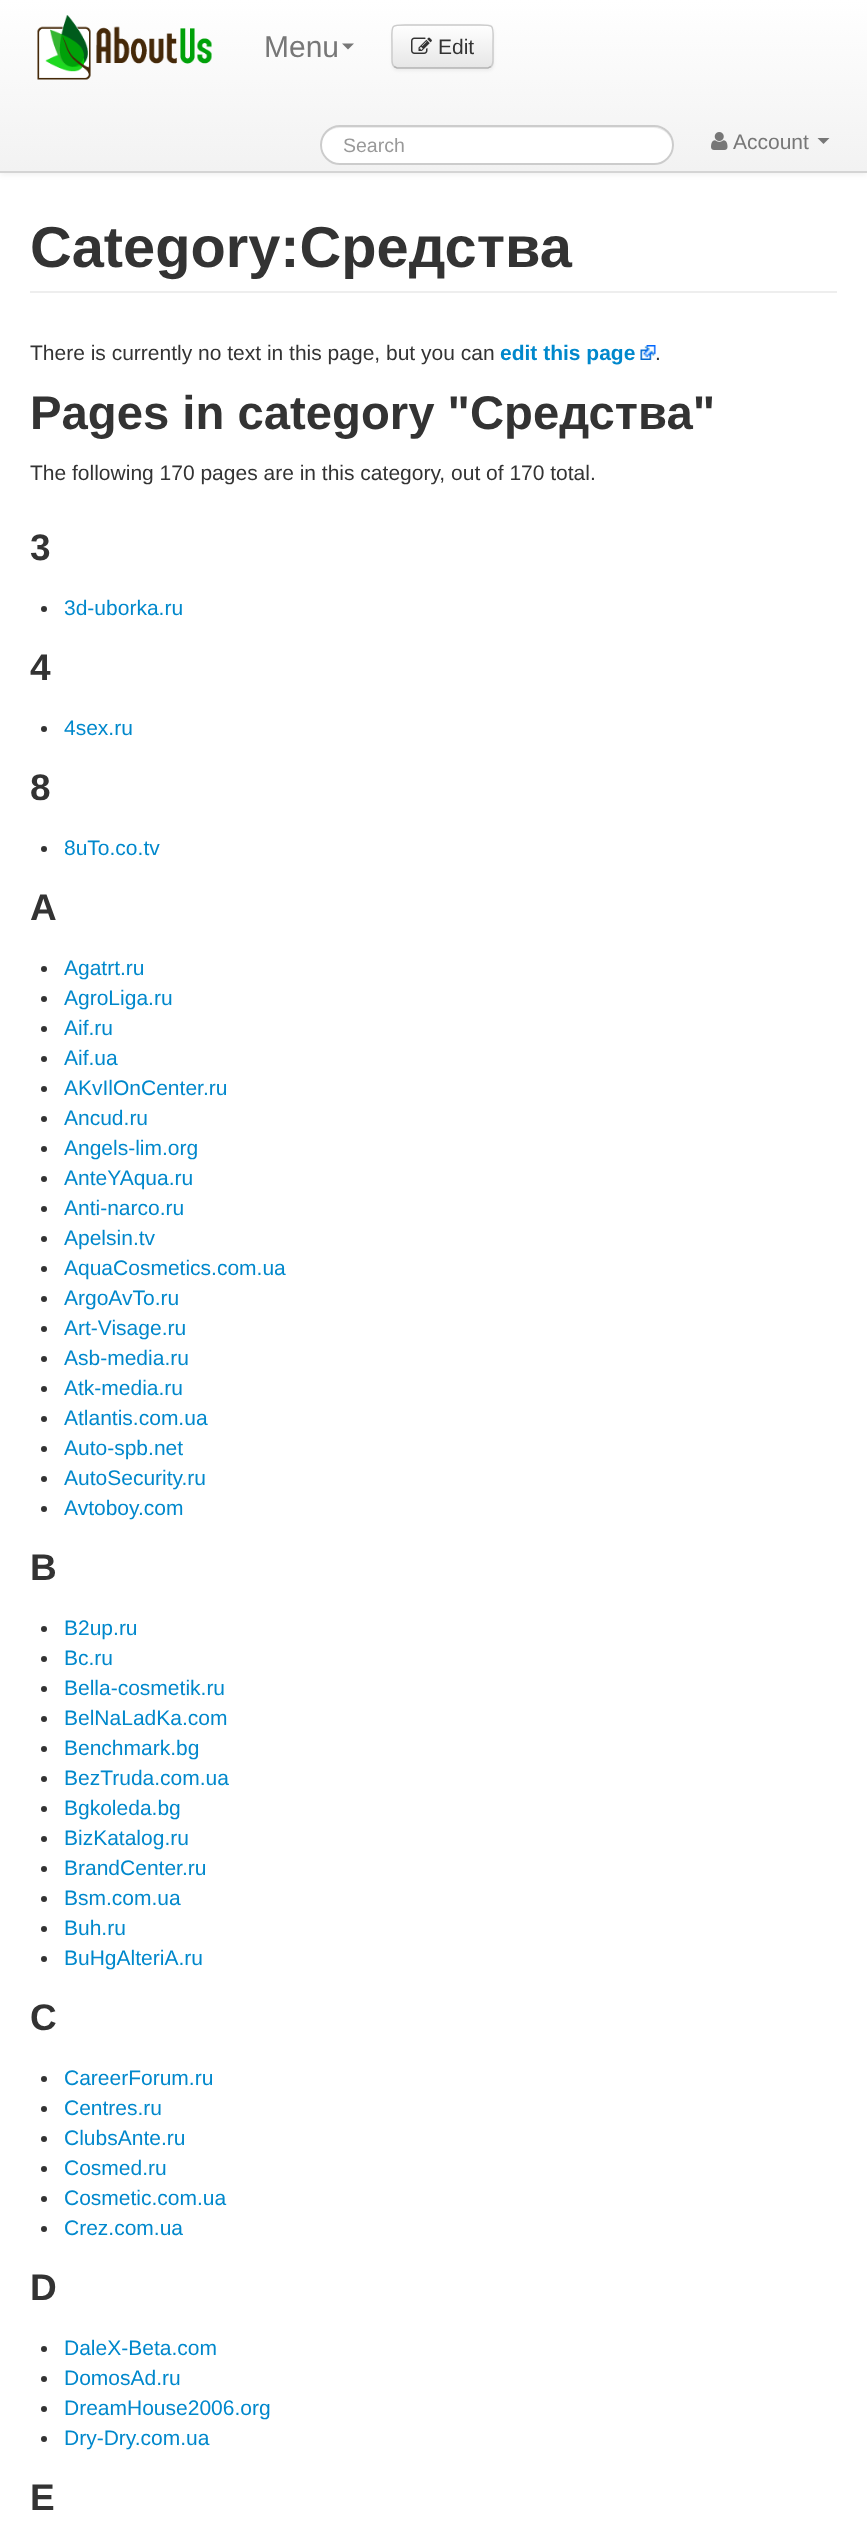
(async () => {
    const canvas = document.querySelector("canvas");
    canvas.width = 867;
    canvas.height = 2536;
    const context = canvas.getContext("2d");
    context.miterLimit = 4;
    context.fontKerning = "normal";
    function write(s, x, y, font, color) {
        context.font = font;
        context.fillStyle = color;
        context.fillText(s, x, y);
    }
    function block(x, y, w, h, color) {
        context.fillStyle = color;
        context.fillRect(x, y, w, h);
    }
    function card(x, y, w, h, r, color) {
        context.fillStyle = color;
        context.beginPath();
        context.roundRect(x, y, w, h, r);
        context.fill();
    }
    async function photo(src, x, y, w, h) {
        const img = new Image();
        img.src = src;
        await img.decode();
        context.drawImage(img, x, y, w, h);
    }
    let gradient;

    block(0, 0, 867, 2536, "rgb(255, 255, 255)");
    context.fillStyle = "rgba(0, 0, 0, 0.07)";
    context.filter = "blur(3px)";
    context.beginPath();
    context.rect(0, 2, 867, 172);
    context.fill();
    context.filter = "none";
    gradient = context.createLinearGradient(434, 0, 434, 171);
    gradient.addColorStop(0, "rgb(255, 255, 255)");
    gradient.addColorStop(1, "rgb(242, 242, 242)");
    context.fillStyle = gradient;
    context.fillRect(0, 0, 867, 171);
    block(0, 171, 867, 2, "rgb(212, 212, 212)");
    await photo("media/1.png", 37, 15, 175, 65);
    write("Menu", 264, 57, "30px Liberation Sans", "rgb(119, 119, 119)");
    context.beginPath();
    context.moveTo(342, 43.5);
    context.lineTo(354, 43.5);
    context.lineTo(348, 49.5);
    context.closePath();
    context.fill();
    context.fillStyle = "rgba(0, 0, 0, 0.05)";
    context.filter = "blur(1.5px)";
    context.beginPath();
    context.roundRect(392, 26, 102, 45, 6);
    context.fill();
    context.filter = "none";
    card(392, 24, 102, 45, 6, "rgb(245, 245, 245)");
    context.save();
    context.beginPath();
    context.roundRect(392, 24, 102, 45, 6);
    context.clip();
    gradient = context.createLinearGradient(443, 25, 443, 68);
    gradient.addColorStop(0, "rgb(255, 255, 255)");
    gradient.addColorStop(1, "rgb(230, 230, 230)");
    context.fillStyle = gradient;
    context.fillRect(392, 26, 102, 42);
    context.restore();
    context.beginPath();
    context.moveTo(491, 66.5);
    context.lineTo(488, 68);
    context.lineTo(397, 68);
    context.lineTo(394, 66.5);
    context.strokeStyle = "rgb(179, 179, 179)";
    context.lineWidth = 1.5;
    context.stroke();
    context.beginPath();
    context.moveTo(394, 66.5);
    context.bezierCurveTo(391.5, 64.5, 392, 60.5, 392, 57.5);
    context.lineTo(392, 46.5);
    context.bezierCurveTo(392, 22.5, 388.5, 25, 412.5, 25);
    context.lineTo(472.5, 25);
    context.bezierCurveTo(496.5, 25, 493, 22.5, 493, 46.5);
    context.lineTo(493, 57.5);
    context.bezierCurveTo(493, 60.5, 493.5, 64.5, 491, 66.5);
    context.strokeStyle = "rgb(204, 204, 204)";
    context.stroke();
    await photo("media/2.png", 411, 37, 21, 17);
    write("Edit", 438, 54, "21px Liberation Sans", "rgb(51, 51, 51)");
    card(320, 125, 354, 40, 20, "rgb(255, 255, 255)");
    context.fillStyle = "rgb(236, 236, 236)";
    context.beginPath();
    context.moveTo(340, 128);
    context.lineTo(653, 128);
    context.bezierCurveTo(664, 128, 672, 136, 672, 146);
    context.bezierCurveTo(672, 135, 664, 126, 653, 126);
    context.lineTo(340, 126);
    context.bezierCurveTo(329, 126, 321, 135, 321, 146);
    context.bezierCurveTo(321, 136, 329, 128, 340, 128);
    context.closePath();
    context.fill();
    context.beginPath();
    context.roundRect(321, 126, 352, 38, 19);
    context.lineWidth = 2;
    context.stroke();
    write("Search", 343, 152, "19.5px Liberation Sans", "rgb(153, 153, 153)");
    await photo("media/3.png", 711, 132, 17, 18);
    write("Account", 733, 149, "21px Liberation Sans", "rgb(119, 119, 119)");
    context.beginPath();
    context.moveTo(817.5, 138);
    context.lineTo(829.5, 138);
    context.lineTo(823.5, 144);
    context.closePath();
    context.fill();
    block(30, 291, 807, 2, "rgb(238, 238, 238)");
    write("Category:Средства", 30, 267, "bold 57.75px Liberation Sans", "rgb(51, 51, 51)");
    write("There is currently no text in this page, but you can", 30, 360, "21px Liberation Sans", "rgb(51, 51, 51)");
    write("edit this page", 500, 360, "bold 21px Liberation Sans", "rgb(0, 136, 204)");
    await photo("media/4.png", 640, 345, 16, 15);
    write(".", 655, 360, "21px Liberation Sans", "rgb(51, 51, 51)");
    write("Pages in category \"Средства\"", 30, 429, "bold 47.25px Liberation Sans", "rgb(51, 51, 51)");
    write("The following 170 pages are in this category, out of 170 total.", 30, 480, "21px Liberation Sans", "rgb(51, 51, 51)");
    write("3", 30, 560, "bold 37px Liberation Sans", "rgb(51, 51, 51)");
    context.beginPath();
    context.arc(44, 609, 3, 0, Math.PI * 2);
    context.fill();
    write("3d-uborka.ru", 64, 615, "21px Liberation Sans", "rgb(0, 136, 204)");
    write("4", 30, 680, "bold 37px Liberation Sans", "rgb(51, 51, 51)");
    context.beginPath();
    context.arc(44, 729, 3, 0, Math.PI * 2);
    context.fill();
    write("4sex.ru", 64, 735, "21px Liberation Sans", "rgb(0, 136, 204)");
    write("8", 30, 800, "bold 37px Liberation Sans", "rgb(51, 51, 51)");
    context.beginPath();
    context.arc(44, 849, 3, 0, Math.PI * 2);
    context.fill();
    write("8uTo.co.tv", 64, 855, "21px Liberation Sans", "rgb(0, 136, 204)");
    write("A", 30, 920, "bold 37px Liberation Sans", "rgb(51, 51, 51)");
    context.beginPath();
    context.arc(44, 969, 3, 0, Math.PI * 2);
    context.fill();
    write("Agatrt.ru", 64, 975, "21px Liberation Sans", "rgb(0, 136, 204)");
    context.fillStyle = "rgb(51, 51, 51)";
    context.beginPath();
    context.arc(44, 999, 3, 0, Math.PI * 2);
    context.fill();
    write("AgroLiga.ru", 64, 1005, "21px Liberation Sans", "rgb(0, 136, 204)");
    context.fillStyle = "rgb(51, 51, 51)";
    context.beginPath();
    context.arc(44, 1029, 3, 0, Math.PI * 2);
    context.fill();
    write("Aif.ru", 64, 1035, "21px Liberation Sans", "rgb(0, 136, 204)");
    context.fillStyle = "rgb(51, 51, 51)";
    context.beginPath();
    context.arc(44, 1059, 3, 0, Math.PI * 2);
    context.fill();
    write("Aif.ua", 64, 1065, "21px Liberation Sans", "rgb(0, 136, 204)");
    context.fillStyle = "rgb(51, 51, 51)";
    context.beginPath();
    context.arc(44, 1089, 3, 0, Math.PI * 2);
    context.fill();
    write("AKvIlOnCenter.ru", 64, 1095, "21px Liberation Sans", "rgb(0, 136, 204)");
    context.fillStyle = "rgb(51, 51, 51)";
    context.beginPath();
    context.arc(44, 1119, 3, 0, Math.PI * 2);
    context.fill();
    write("Ancud.ru", 64, 1125, "21px Liberation Sans", "rgb(0, 136, 204)");
    context.fillStyle = "rgb(51, 51, 51)";
    context.beginPath();
    context.arc(44, 1149, 3, 0, Math.PI * 2);
    context.fill();
    write("Angels-lim.org", 64, 1155, "21px Liberation Sans", "rgb(0, 136, 204)");
    context.fillStyle = "rgb(51, 51, 51)";
    context.beginPath();
    context.arc(44, 1179, 3, 0, Math.PI * 2);
    context.fill();
    write("AnteYAqua.ru", 64, 1185, "21px Liberation Sans", "rgb(0, 136, 204)");
    context.fillStyle = "rgb(51, 51, 51)";
    context.beginPath();
    context.arc(44, 1209, 3, 0, Math.PI * 2);
    context.fill();
    write("Anti-narco.ru", 64, 1215, "21px Liberation Sans", "rgb(0, 136, 204)");
    context.fillStyle = "rgb(51, 51, 51)";
    context.beginPath();
    context.arc(44, 1239, 3, 0, Math.PI * 2);
    context.fill();
    write("Apelsin.tv", 64, 1245, "21px Liberation Sans", "rgb(0, 136, 204)");
    context.fillStyle = "rgb(51, 51, 51)";
    context.beginPath();
    context.arc(44, 1269, 3, 0, Math.PI * 2);
    context.fill();
    write("AquaCosmetics.com.ua", 64, 1275, "21px Liberation Sans", "rgb(0, 136, 204)");
    context.fillStyle = "rgb(51, 51, 51)";
    context.beginPath();
    context.arc(44, 1299, 3, 0, Math.PI * 2);
    context.fill();
    write("ArgoAvTo.ru", 64, 1305, "21px Liberation Sans", "rgb(0, 136, 204)");
    context.fillStyle = "rgb(51, 51, 51)";
    context.beginPath();
    context.arc(44, 1329, 3, 0, Math.PI * 2);
    context.fill();
    write("Art-Visage.ru", 64, 1335, "21px Liberation Sans", "rgb(0, 136, 204)");
    context.fillStyle = "rgb(51, 51, 51)";
    context.beginPath();
    context.arc(44, 1359, 3, 0, Math.PI * 2);
    context.fill();
    write("Asb-media.ru", 64, 1365, "21px Liberation Sans", "rgb(0, 136, 204)");
    context.fillStyle = "rgb(51, 51, 51)";
    context.beginPath();
    context.arc(44, 1389, 3, 0, Math.PI * 2);
    context.fill();
    write("Atk-media.ru", 64, 1395, "21px Liberation Sans", "rgb(0, 136, 204)");
    context.fillStyle = "rgb(51, 51, 51)";
    context.beginPath();
    context.arc(44, 1419, 3, 0, Math.PI * 2);
    context.fill();
    write("Atlantis.com.ua", 64, 1425, "21px Liberation Sans", "rgb(0, 136, 204)");
    context.fillStyle = "rgb(51, 51, 51)";
    context.beginPath();
    context.arc(44, 1449, 3, 0, Math.PI * 2);
    context.fill();
    write("Auto-spb.net", 64, 1455, "21px Liberation Sans", "rgb(0, 136, 204)");
    context.fillStyle = "rgb(51, 51, 51)";
    context.beginPath();
    context.arc(44, 1479, 3, 0, Math.PI * 2);
    context.fill();
    write("AutoSecurity.ru", 64, 1485, "21px Liberation Sans", "rgb(0, 136, 204)");
    context.fillStyle = "rgb(51, 51, 51)";
    context.beginPath();
    context.arc(44, 1509, 3, 0, Math.PI * 2);
    context.fill();
    write("Avtoboy.com", 64, 1515, "21px Liberation Sans", "rgb(0, 136, 204)");
    write("B", 30, 1580, "bold 37px Liberation Sans", "rgb(51, 51, 51)");
    context.beginPath();
    context.arc(44, 1629, 3, 0, Math.PI * 2);
    context.fill();
    write("B2up.ru", 64, 1635, "21px Liberation Sans", "rgb(0, 136, 204)");
    context.fillStyle = "rgb(51, 51, 51)";
    context.beginPath();
    context.arc(44, 1659, 3, 0, Math.PI * 2);
    context.fill();
    write("Bc.ru", 64, 1665, "21px Liberation Sans", "rgb(0, 136, 204)");
    context.fillStyle = "rgb(51, 51, 51)";
    context.beginPath();
    context.arc(44, 1689, 3, 0, Math.PI * 2);
    context.fill();
    write("Bella-cosmetik.ru", 64, 1695, "21px Liberation Sans", "rgb(0, 136, 204)");
    context.fillStyle = "rgb(51, 51, 51)";
    context.beginPath();
    context.arc(44, 1719, 3, 0, Math.PI * 2);
    context.fill();
    write("BelNaLadKa.com", 64, 1725, "21px Liberation Sans", "rgb(0, 136, 204)");
    context.fillStyle = "rgb(51, 51, 51)";
    context.beginPath();
    context.arc(44, 1749, 3, 0, Math.PI * 2);
    context.fill();
    write("Benchmark.bg", 64, 1755, "21px Liberation Sans", "rgb(0, 136, 204)");
    context.fillStyle = "rgb(51, 51, 51)";
    context.beginPath();
    context.arc(44, 1779, 3, 0, Math.PI * 2);
    context.fill();
    write("BezTruda.com.ua", 64, 1785, "21px Liberation Sans", "rgb(0, 136, 204)");
    context.fillStyle = "rgb(51, 51, 51)";
    context.beginPath();
    context.arc(44, 1809, 3, 0, Math.PI * 2);
    context.fill();
    write("Bgkoleda.bg", 64, 1815, "21px Liberation Sans", "rgb(0, 136, 204)");
    context.fillStyle = "rgb(51, 51, 51)";
    context.beginPath();
    context.arc(44, 1839, 3, 0, Math.PI * 2);
    context.fill();
    write("BizKatalog.ru", 64, 1845, "21px Liberation Sans", "rgb(0, 136, 204)");
    context.fillStyle = "rgb(51, 51, 51)";
    context.beginPath();
    context.arc(44, 1869, 3, 0, Math.PI * 2);
    context.fill();
    write("BrandCenter.ru", 64, 1875, "21px Liberation Sans", "rgb(0, 136, 204)");
    context.fillStyle = "rgb(51, 51, 51)";
    context.beginPath();
    context.arc(44, 1899, 3, 0, Math.PI * 2);
    context.fill();
    write("Bsm.com.ua", 64, 1905, "21px Liberation Sans", "rgb(0, 136, 204)");
    context.fillStyle = "rgb(51, 51, 51)";
    context.beginPath();
    context.arc(44, 1929, 3, 0, Math.PI * 2);
    context.fill();
    write("Buh.ru", 64, 1935, "21px Liberation Sans", "rgb(0, 136, 204)");
    context.fillStyle = "rgb(51, 51, 51)";
    context.beginPath();
    context.arc(44, 1959, 3, 0, Math.PI * 2);
    context.fill();
    write("BuHgAlteriA.ru", 64, 1965, "21px Liberation Sans", "rgb(0, 136, 204)");
    write("C", 30, 2030, "bold 37px Liberation Sans", "rgb(51, 51, 51)");
    context.beginPath();
    context.arc(44, 2079, 3, 0, Math.PI * 2);
    context.fill();
    write("CareerForum.ru", 64, 2085, "21px Liberation Sans", "rgb(0, 136, 204)");
    context.fillStyle = "rgb(51, 51, 51)";
    context.beginPath();
    context.arc(44, 2109, 3, 0, Math.PI * 2);
    context.fill();
    write("Centres.ru", 64, 2115, "21px Liberation Sans", "rgb(0, 136, 204)");
    context.fillStyle = "rgb(51, 51, 51)";
    context.beginPath();
    context.arc(44, 2139, 3, 0, Math.PI * 2);
    context.fill();
    write("ClubsAnte.ru", 64, 2145, "21px Liberation Sans", "rgb(0, 136, 204)");
    context.fillStyle = "rgb(51, 51, 51)";
    context.beginPath();
    context.arc(44, 2169, 3, 0, Math.PI * 2);
    context.fill();
    write("Cosmed.ru", 64, 2175, "21px Liberation Sans", "rgb(0, 136, 204)");
    context.fillStyle = "rgb(51, 51, 51)";
    context.beginPath();
    context.arc(44, 2199, 3, 0, Math.PI * 2);
    context.fill();
    write("Cosmetic.com.ua", 64, 2205, "21px Liberation Sans", "rgb(0, 136, 204)");
    context.fillStyle = "rgb(51, 51, 51)";
    context.beginPath();
    context.arc(44, 2229, 3, 0, Math.PI * 2);
    context.fill();
    write("Crez.com.ua", 64, 2235, "21px Liberation Sans", "rgb(0, 136, 204)");
    write("D", 30, 2300, "bold 37px Liberation Sans", "rgb(51, 51, 51)");
    context.beginPath();
    context.arc(44, 2349, 3, 0, Math.PI * 2);
    context.fill();
    write("DaleX-Beta.com", 64, 2355, "21px Liberation Sans", "rgb(0, 136, 204)");
    context.fillStyle = "rgb(51, 51, 51)";
    context.beginPath();
    context.arc(44, 2379, 3, 0, Math.PI * 2);
    context.fill();
    write("DomosAd.ru", 64, 2385, "21px Liberation Sans", "rgb(0, 136, 204)");
    context.fillStyle = "rgb(51, 51, 51)";
    context.beginPath();
    context.arc(44, 2409, 3, 0, Math.PI * 2);
    context.fill();
    write("DreamHouse2006.org", 64, 2415, "21px Liberation Sans", "rgb(0, 136, 204)");
    context.fillStyle = "rgb(51, 51, 51)";
    context.beginPath();
    context.arc(44, 2439, 3, 0, Math.PI * 2);
    context.fill();
    write("Dry-Dry.com.ua", 64, 2445, "21px Liberation Sans", "rgb(0, 136, 204)");
    write("E", 30, 2510, "bold 37px Liberation Sans", "rgb(51, 51, 51)");
})();
